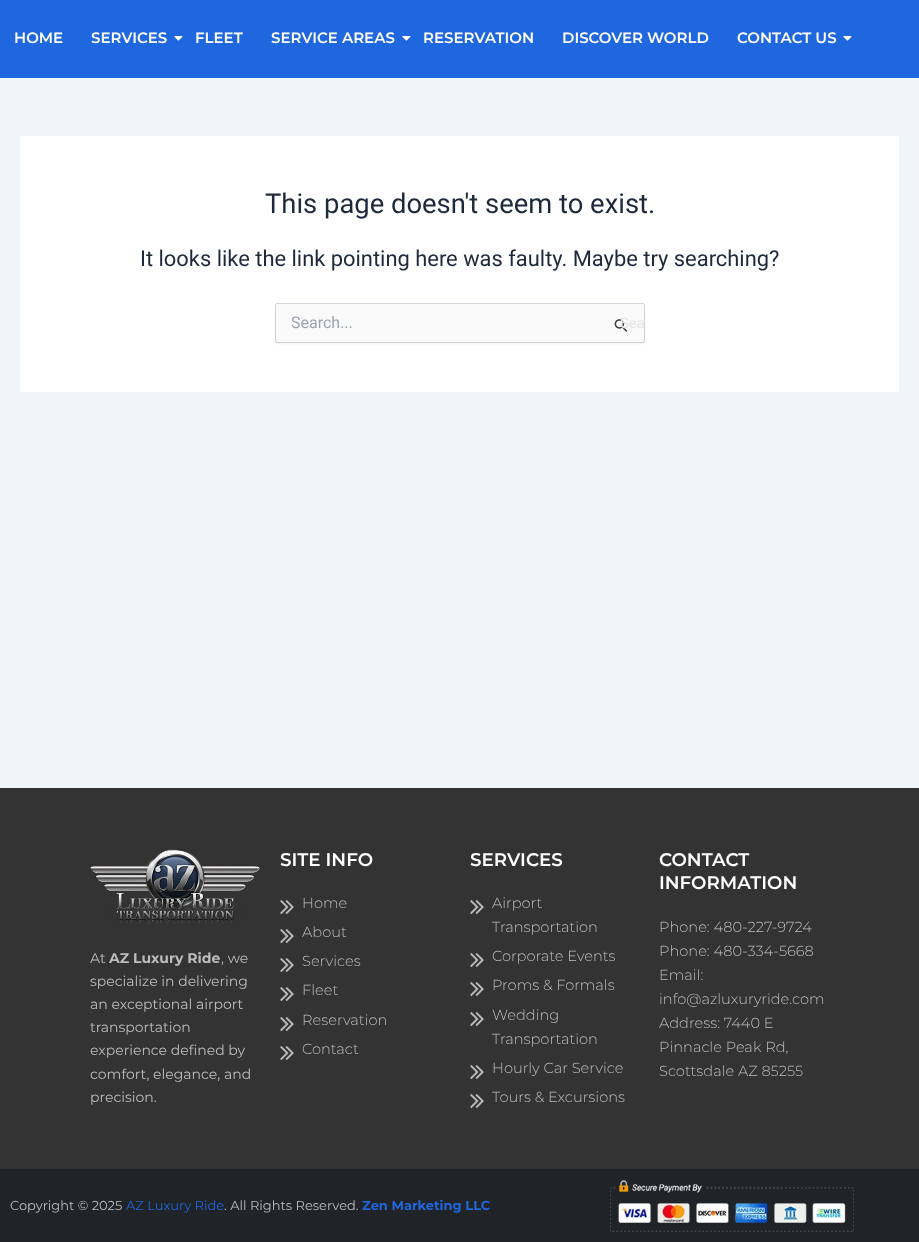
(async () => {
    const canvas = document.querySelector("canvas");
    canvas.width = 919;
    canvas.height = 1242;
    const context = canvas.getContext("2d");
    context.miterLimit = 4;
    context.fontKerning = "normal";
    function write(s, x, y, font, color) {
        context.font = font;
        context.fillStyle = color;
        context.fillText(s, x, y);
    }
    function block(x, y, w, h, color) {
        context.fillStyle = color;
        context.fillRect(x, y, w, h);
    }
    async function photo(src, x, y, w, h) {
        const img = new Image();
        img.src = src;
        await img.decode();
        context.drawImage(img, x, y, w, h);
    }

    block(0, 0, 919, 1242, "rgb(240, 245, 250)");
    block(0, 0, 919, 78, "rgb(31, 103, 223)");
    write("HOME", 14, 43, "600 15px Montserrat", "rgb(255, 255, 255)");
    write("SERVICES", 91, 43, "600 15px Montserrat", "rgb(255, 255, 255)");
    await photo("media/1.png", 174, 36, 9, 5);
    write("FLEET", 195, 43, "600 15px Montserrat", "rgb(255, 255, 255)");
    write("SERVICE AREAS", 271, 43, "600 15px Montserrat", "rgb(255, 255, 255)");
    await photo("media/1.png", 402, 36, 9, 5);
    write("RESERVATION", 423, 43, "600 15px Montserrat", "rgb(255, 255, 255)");
    write("DISCOVER WORLD", 562, 43, "600 15px Montserrat", "rgb(255, 255, 255)");
    write("CONTACT US", 737, 43, "600 15px Montserrat", "rgb(255, 255, 255)");
    await photo("media/1.png", 843, 36, 9, 5);
    block(20, 136, 879, 256, "rgb(255, 255, 255)");
    write("This page doesn't seem to exist.", 265, 213, "27.4px Roboto", "rgb(30, 41, 59)");
    write("It looks like the link pointing here was faulty. Maybe try searching?", 140, 266, "21.9px Roboto", "rgb(30, 41, 59)");
    context.fillStyle = "rgba(0, 0, 0, 0.05)";
    context.filter = "blur(1px)";
    context.beginPath();
    context.roundRect(275, 304, 370, 40, 2);
    context.fill();
    context.filter = "none";
    context.fillStyle = "rgb(250, 250, 250)";
    context.beginPath();
    context.roundRect(275.5, 303.5, 369, 39, 1.5);
    context.fill();
    context.strokeStyle = "rgb(209, 213, 219)";
    context.stroke();
    write("Search...", 291, 328, "16px Roboto", "rgb(156, 163, 175)");
    await photo("media/2.png", 614, 319, 14, 13);
    write("Sea", 620, 328, "500 14.6px Roboto", "rgb(231, 231, 232)");
    block(0, 788, 919, 381, "rgb(51, 51, 51)");
    await photo("media/3.png", 90, 849, 170, 75);
    write("At", 90, 963, "14px Montserrat", "rgb(188, 188, 188)");
    write("AZ Luxury Ride", 109, 963, "bold 14px Montserrat", "rgb(188, 188, 188)");
    write(", we", 221, 963, "14px Montserrat", "rgb(188, 188, 188)");
    write("specialize in delivering", 90, 986, "14px Montserrat", "rgb(188, 188, 188)");
    write("an exceptional airport", 90, 1009, "14px Montserrat", "rgb(188, 188, 188)");
    write("transportation", 90, 1032, "14px Montserrat", "rgb(188, 188, 188)");
    write("experience defined by", 90, 1055, "14px Montserrat", "rgb(188, 188, 188)");
    write("comfort, elegance, and", 90, 1079, "14px Montserrat", "rgb(188, 188, 188)");
    write("precision.", 90, 1102, "14px Montserrat", "rgb(188, 188, 188)");
    write("SITE INFO", 280, 866, "600 18.25px Montserrat", "rgb(255, 255, 255)");
    await photo("media/4.png", 280, 900, 14, 14);
    write("Home", 302, 908, "300 14.6px Montserrat", "rgb(188, 188, 188)");
    await photo("media/4.png", 280, 929, 14, 14);
    write("About", 302, 937, "300 14.6px Montserrat", "rgb(188, 188, 188)");
    await photo("media/4.png", 280, 958, 14, 14);
    write("Services", 302, 966, "300 14.6px Montserrat", "rgb(188, 188, 188)");
    await photo("media/4.png", 280, 987, 14, 14);
    write("Fleet", 302, 995, "300 14.6px Montserrat", "rgb(188, 188, 188)");
    await photo("media/4.png", 280, 1017, 14, 14);
    write("Reservation", 302, 1025, "300 14.6px Montserrat", "rgb(188, 188, 188)");
    await photo("media/4.png", 280, 1046, 14, 14);
    write("Contact", 302, 1054, "300 14.6px Montserrat", "rgb(188, 188, 188)");
    write("SERVICES", 470, 866, "600 18.25px Montserrat", "rgb(255, 255, 255)");
    await photo("media/4.png", 470, 900, 14, 14);
    write("Airport", 492, 908, "300 14.6px Montserrat", "rgb(188, 188, 188)");
    write("Transportation", 492, 932, "300 14.6px Montserrat", "rgb(188, 188, 188)");
    await photo("media/4.png", 470, 953, 14, 14);
    write("Corporate Events", 492, 961, "300 14.6px Montserrat", "rgb(188, 188, 188)");
    await photo("media/4.png", 470, 982, 14, 14);
    write("Proms & Formals", 492, 990, "300 14.6px Montserrat", "rgb(188, 188, 188)");
    await photo("media/4.png", 470, 1012, 14, 14);
    write("Wedding", 492, 1020, "300 14.6px Montserrat", "rgb(188, 188, 188)");
    write("Transportation", 492, 1044, "300 14.6px Montserrat", "rgb(188, 188, 188)");
    await photo("media/4.png", 470, 1065, 14, 14);
    write("Hourly Car Service", 492, 1073, "300 14.6px Montserrat", "rgb(188, 188, 188)");
    await photo("media/4.png", 470, 1094, 14, 14);
    write("Tours & Excursions", 492, 1102, "300 14.6px Montserrat", "rgb(188, 188, 188)");
    write("CONTACT", 659, 866, "600 18.25px Montserrat", "rgb(255, 255, 255)");
    write("INFORMATION", 659, 889, "600 18.25px Montserrat", "rgb(255, 255, 255)");
    write("Phone: 480-227-9724", 659, 932, "300 14.6px Montserrat", "rgb(188, 188, 188)");
    write("Phone: 480-334-5668", 659, 956, "300 14.6px Montserrat", "rgb(188, 188, 188)");
    write("Email:", 659, 980, "300 14.6px Montserrat", "rgb(188, 188, 188)");
    write("info@azluxuryride.com", 659, 1004, "300 14.6px Montserrat", "rgb(188, 188, 188)");
    write("Address: 7440 E", 659, 1028, "300 14.6px Montserrat", "rgb(188, 188, 188)");
    write("Pinnacle Peak Rd,", 659, 1052, "300 14.6px Montserrat", "rgb(188, 188, 188)");
    write("Scottsdale AZ 85255", 659, 1076, "300 14.6px Montserrat", "rgb(188, 188, 188)");
    block(0, 1169, 919, 73, "rgb(32, 35, 39)");
    write("Copyright © 2025", 10, 1210, "13px Montserrat", "rgb(188, 188, 188)");
    write("AZ Luxury Ride", 126, 1210, "13px Montserrat", "rgb(31, 103, 223)");
    write(". All Rights Reserved.", 224, 1210, "13px Montserrat", "rgb(188, 188, 188)");
    write("Zen Marketing LLC", 362, 1210, "bold 13px Montserrat", "rgb(31, 103, 223)");
    await photo("media/5.png", 610, 1179, 244, 53);
})();
